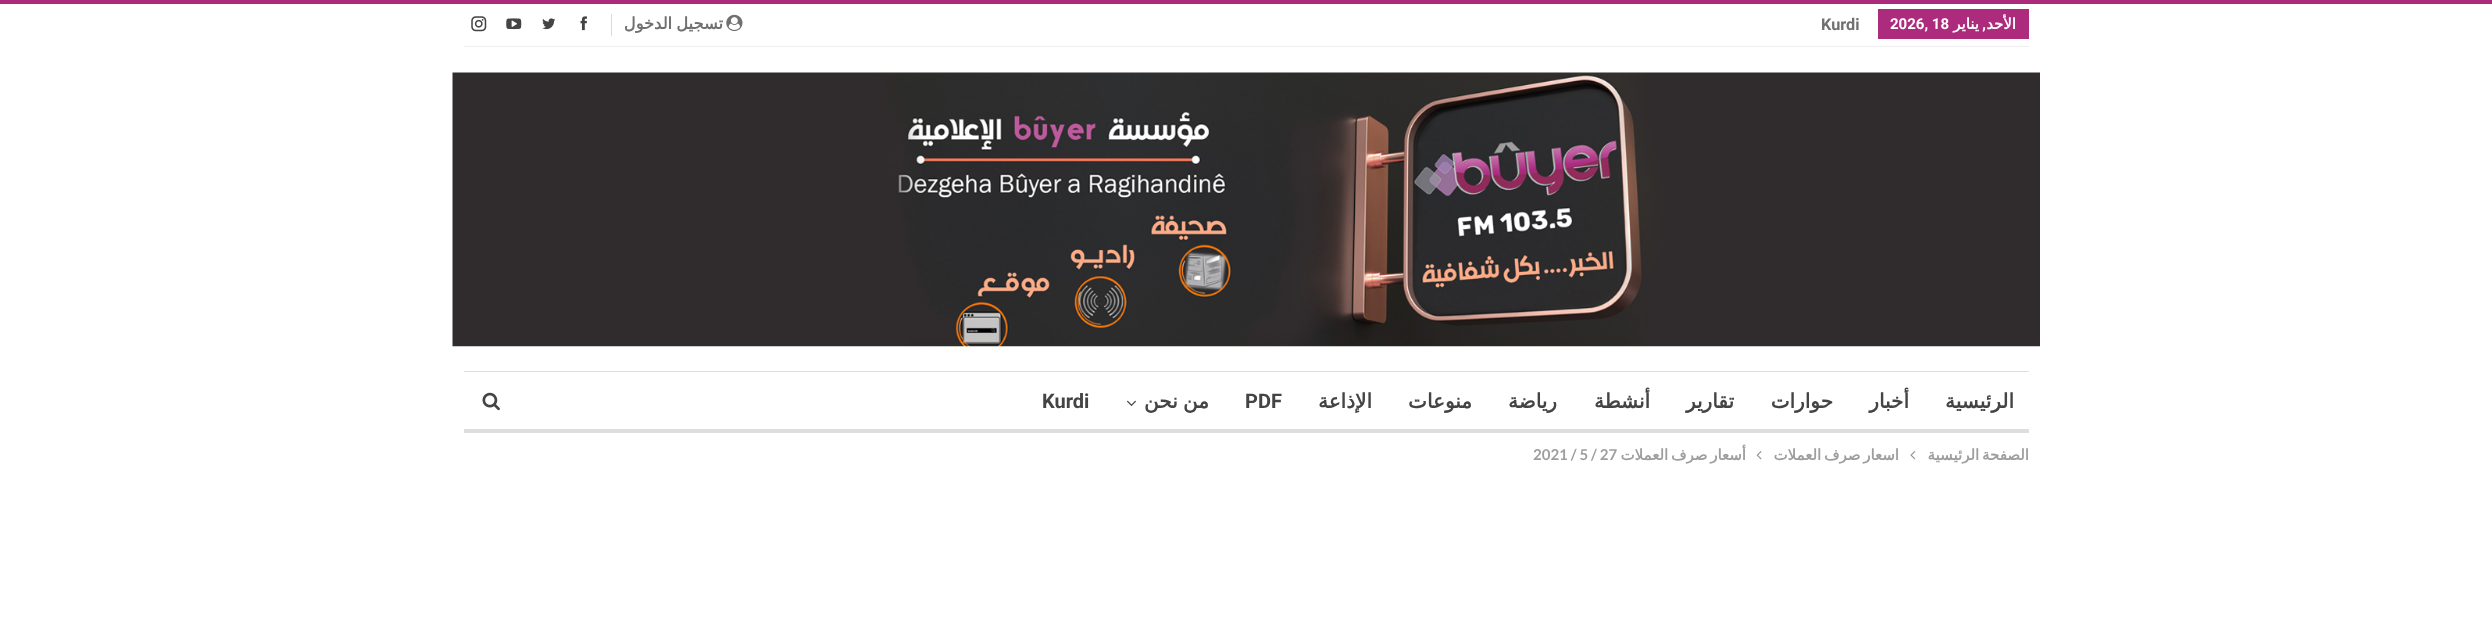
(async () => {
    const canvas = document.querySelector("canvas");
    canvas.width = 2492;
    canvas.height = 637;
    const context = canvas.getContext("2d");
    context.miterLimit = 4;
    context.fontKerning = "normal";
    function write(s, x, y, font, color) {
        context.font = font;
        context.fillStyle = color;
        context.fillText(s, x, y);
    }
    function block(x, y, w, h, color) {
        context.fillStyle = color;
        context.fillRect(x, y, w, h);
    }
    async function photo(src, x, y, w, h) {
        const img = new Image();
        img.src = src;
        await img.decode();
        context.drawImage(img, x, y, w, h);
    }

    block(0, 0, 2492, 637, "rgb(255, 255, 255)");
    block(0, 0, 2492, 4, "rgb(172, 43, 125)");
    block(464, 46, 1565, 1, "rgb(239, 239, 239)");
    block(1878, 9, 151, 30, "rgb(172, 43, 125)");
    context.direction = "rtl";
    write("الأحد", 2016, 29, "bold 15px DejaVu Sans", "rgb(255, 255, 255)");
    write(",", 1986, 29, "bold 15px Roboto", "rgb(255, 255, 255)");
    write("يناير", 1979, 29, "bold 15px DejaVu Sans", "rgb(255, 255, 255)");
    context.direction = "ltr";
    write("2026, 18", 1890, 29, "bold 15px Roboto", "rgb(255, 255, 255)");
    write("Kurdi", 1821, 30, "bold 16.25px Roboto", "rgb(112, 112, 112)");
    await photo("media/1.png", 726, 14, 17, 18);
    context.wordSpacing = "-1px";
    context.direction = "rtl";
    write("تسجيل الدخول", 723, 29, "bold 16.25px DejaVu Sans", "rgb(112, 112, 112)");
    block(611, 14, 1, 22, "rgb(217, 217, 217)");
    await photo("media/2.png", 580, 16, 7, 15);
    await photo("media/3.png", 542, 18, 14, 12);
    await photo("media/4.png", 506, 18, 16, 12);
    await photo("media/5.png", 471, 16, 16, 16);
    await photo("media/6.png", 452, 72, 1588, 275);
    block(464, 371, 1565, 1, "rgb(222, 222, 222)");
    block(464, 429, 1565, 4, "rgb(222, 222, 222)");
    context.wordSpacing = "0px";
    write("الرئيسية", 2014, 408, "bold 20px DejaVu Sans", "rgb(68, 68, 68)");
    write("أخبار", 1909, 408, "bold 20px DejaVu Sans", "rgb(68, 68, 68)");
    write("حوارات", 1833, 408, "bold 20px DejaVu Sans", "rgb(68, 68, 68)");
    write("تقارير", 1734, 408, "bold 20px DejaVu Sans", "rgb(68, 68, 68)");
    write("أنشطة", 1650, 408, "bold 20px DejaVu Sans", "rgb(68, 68, 68)");
    write("رياضة", 1557, 408, "bold 20px DejaVu Sans", "rgb(68, 68, 68)");
    write("منوعات", 1472, 408, "bold 20px DejaVu Sans", "rgb(68, 68, 68)");
    write("الإذاعة", 1372, 408, "bold 20px DejaVu Sans", "rgb(68, 68, 68)");
    context.direction = "ltr";
    write("PDF", 1245, 408, "bold 20px Roboto", "rgb(68, 68, 68)");
    context.wordSpacing = "-1px";
    context.direction = "rtl";
    write("من نحن", 1209, 408, "bold 20px DejaVu Sans", "rgb(68, 68, 68)");
    await photo("media/7.png", 1127, 400, 9, 6);
    context.wordSpacing = "0px";
    context.direction = "ltr";
    write("Kurdi", 1042, 408, "bold 20px Roboto", "rgb(68, 68, 68)");
    await photo("media/8.png", 482, 392, 18, 19);
    context.wordSpacing = "-2px";
    context.direction = "rtl";
    write("الصفحة الرئيسية", 2029, 460, "bold 15px DejaVu Sans", "rgb(158, 158, 158)");
    await photo("media/9.png", 1910, 451, 6, 9);
    write("اسعار صرف العملات", 1899, 460, "bold 15px DejaVu Sans", "rgb(158, 158, 158)");
    await photo("media/10.png", 1756, 451, 6, 9);
    write("أسعار صرف العملات", 1746, 460, "bold 15px DejaVu Sans", "rgb(158, 158, 158)");
    context.wordSpacing = "0px";
    context.direction = "ltr";
    write("2021 / 5 / 27", 1533, 460, "bold 15px Lato", "rgb(158, 158, 158)");
})();
